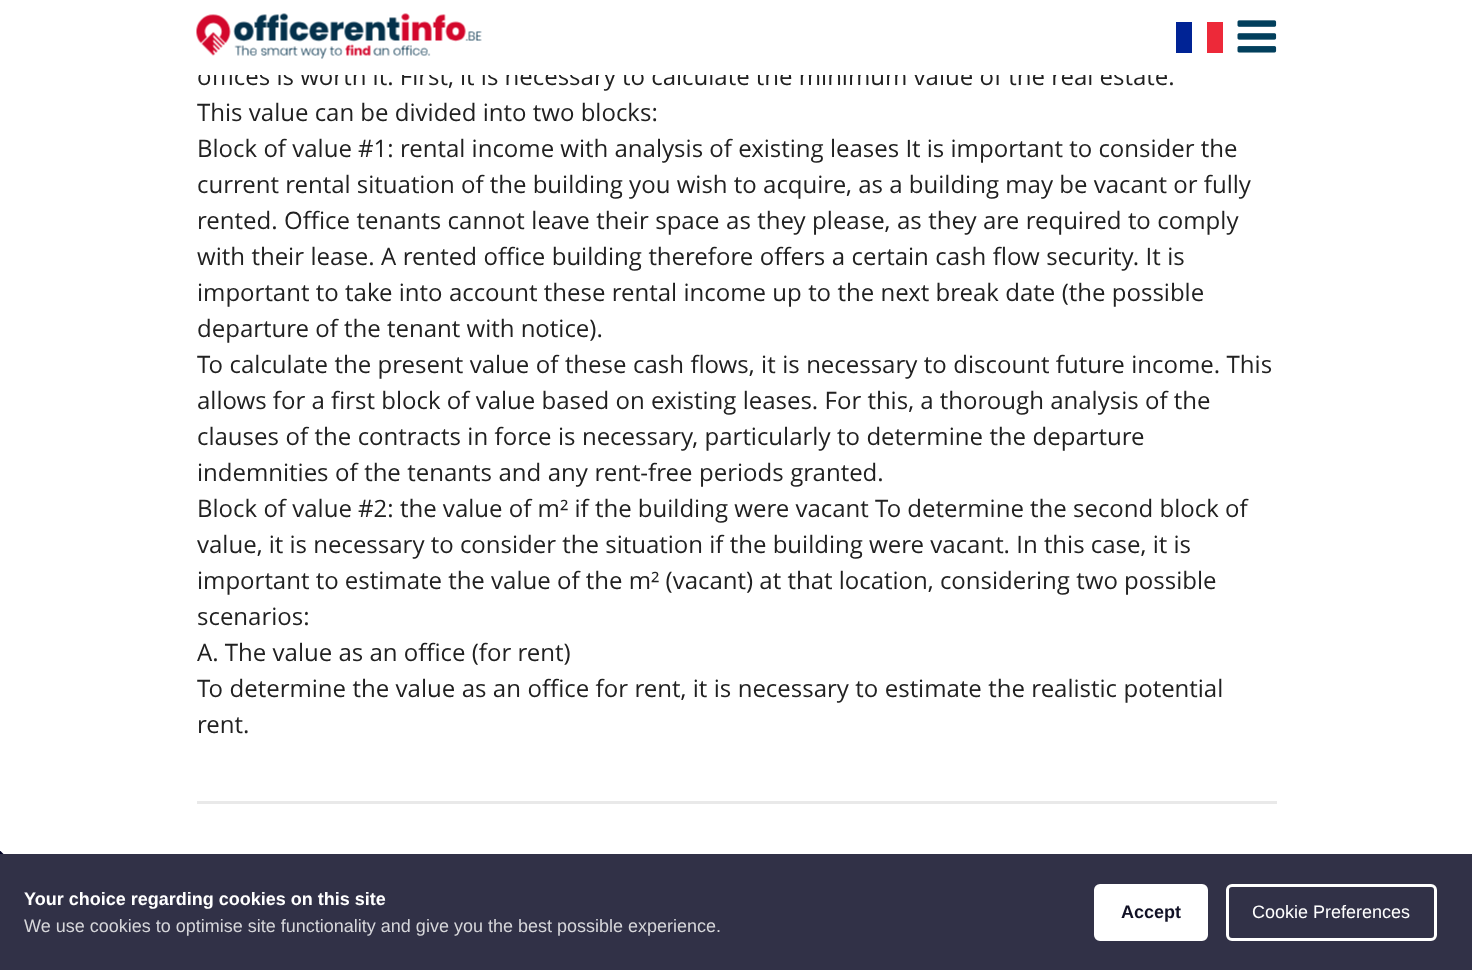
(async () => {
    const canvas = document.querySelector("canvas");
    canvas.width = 1472;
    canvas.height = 970;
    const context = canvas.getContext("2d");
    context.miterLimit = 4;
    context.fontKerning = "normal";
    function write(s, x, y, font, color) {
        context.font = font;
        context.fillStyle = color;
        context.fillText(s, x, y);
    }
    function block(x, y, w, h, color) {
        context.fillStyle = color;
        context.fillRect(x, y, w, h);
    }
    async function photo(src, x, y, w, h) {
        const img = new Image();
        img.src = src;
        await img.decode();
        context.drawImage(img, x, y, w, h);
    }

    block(0, 0, 1472, 970, "rgb(255, 255, 255)");
    write("offices is worth it. First, it is necessary to calculate the minimum value of the real estate.", 197, 85, "24px Open Sans", "rgb(33, 33, 33)");
    block(198, 66, 969, 9, "rgb(255, 255, 255)");
    await photo("media/1.png", 196, 13, 286, 46);
    block(1207, 22, 16, 31, "rgb(237, 41, 57)");
    block(1176, 22, 16, 31, "rgb(0, 35, 149)");
    await photo("media/2.png", 1237, 20, 40, 33);
    write("This value can be divided into two blocks:", 197, 121, "24px Open Sans", "rgb(33, 33, 33)");
    write("Block of value #1: rental income with analysis of existing leases It is important to consider the", 197, 157, "24px Open Sans", "rgb(33, 33, 33)");
    write("current rental situation of the building you wish to acquire, as a building may be vacant or fully", 197, 193, "24px Open Sans", "rgb(33, 33, 33)");
    context.wordSpacing = "0.25px";
    write("rented. Office tenants cannot leave their space as they please, as they are required to comply", 197, 229, "24px Open Sans", "rgb(33, 33, 33)");
    write("with their lease. A rented office building therefore offers a certain cash flow security. It is", 197, 265, "24px Open Sans", "rgb(33, 33, 33)");
    context.wordSpacing = "0.1px";
    write("important to take into account these rental income up to the next break date (the possible", 197, 301, "24px Open Sans", "rgb(33, 33, 33)");
    context.wordSpacing = "0px";
    write("departure of the tenant with notice).", 197, 337, "24px Open Sans", "rgb(33, 33, 33)");
    context.wordSpacing = "0.25px";
    write("To calculate the present value of these cash flows, it is necessary to discount future income. This", 197, 373, "24px Open Sans", "rgb(33, 33, 33)");
    context.wordSpacing = "0px";
    write("allows for a first block of value based on existing leases. For this, a thorough analysis of the", 197, 409, "24px Open Sans", "rgb(33, 33, 33)");
    context.wordSpacing = "0.25px";
    write("clauses of the contracts in force is necessary, particularly to determine the departure", 197, 445, "24px Open Sans", "rgb(33, 33, 33)");
    write("indemnities of the tenants and any rent-free periods granted.", 197, 481, "24px Open Sans", "rgb(33, 33, 33)");
    context.wordSpacing = "0px";
    write("Block of value #2: the value of m² if the building were vacant To determine the second block of", 197, 517, "24px Open Sans", "rgb(33, 33, 33)");
    write("value, it is necessary to consider the situation if the building were vacant. In this case, it is", 197, 553, "24px Open Sans", "rgb(33, 33, 33)");
    write("important to estimate the value of the m² (vacant) at that location, considering two possible", 197, 589, "24px Open Sans", "rgb(33, 33, 33)");
    write("scenarios:", 197, 625, "24px Open Sans", "rgb(33, 33, 33)");
    write("A. The value as an office (for rent)", 197, 661, "24px Open Sans", "rgb(33, 33, 33)");
    context.wordSpacing = "0.2px";
    write("To determine the value as an office for rent, it is necessary to estimate the realistic potential", 197, 697, "24px Open Sans", "rgb(33, 33, 33)");
    context.wordSpacing = "0px";
    write("rent.", 197, 733, "24px Open Sans", "rgb(33, 33, 33)");
    block(197, 801, 1080, 3, "rgb(233, 233, 233)");
    await photo("media/3.png", 0, 851, 4, 3);
    block(0, 854, 1472, 116, "rgb(49, 49, 71)");
    write("Your choice regarding cookies on this site", 24, 905, "bold 18px Liberation Sans", "rgb(255, 255, 255)");
    write("We use cookies to optimise site functionality and give you the best possible experience.", 24, 932, "18px Liberation Sans", "rgb(214, 214, 218)");
    context.fillStyle = "rgb(255, 255, 255)";
    context.beginPath();
    context.roundRect(1095.5, 885.5, 111, 54, 4.5);
    context.fill();
    context.strokeStyle = "rgb(255, 255, 255)";
    context.lineWidth = 3;
    context.stroke();
    write("Accept", 1121, 918, "bold 18px Liberation Sans", "rgb(17, 17, 37)");
    context.beginPath();
    context.roundRect(1227.5, 885.5, 208, 54, 4.5);
    context.stroke();
    write("Cookie Preferences", 1252, 918, "18px Liberation Sans", "rgb(255, 255, 255)");
})();
